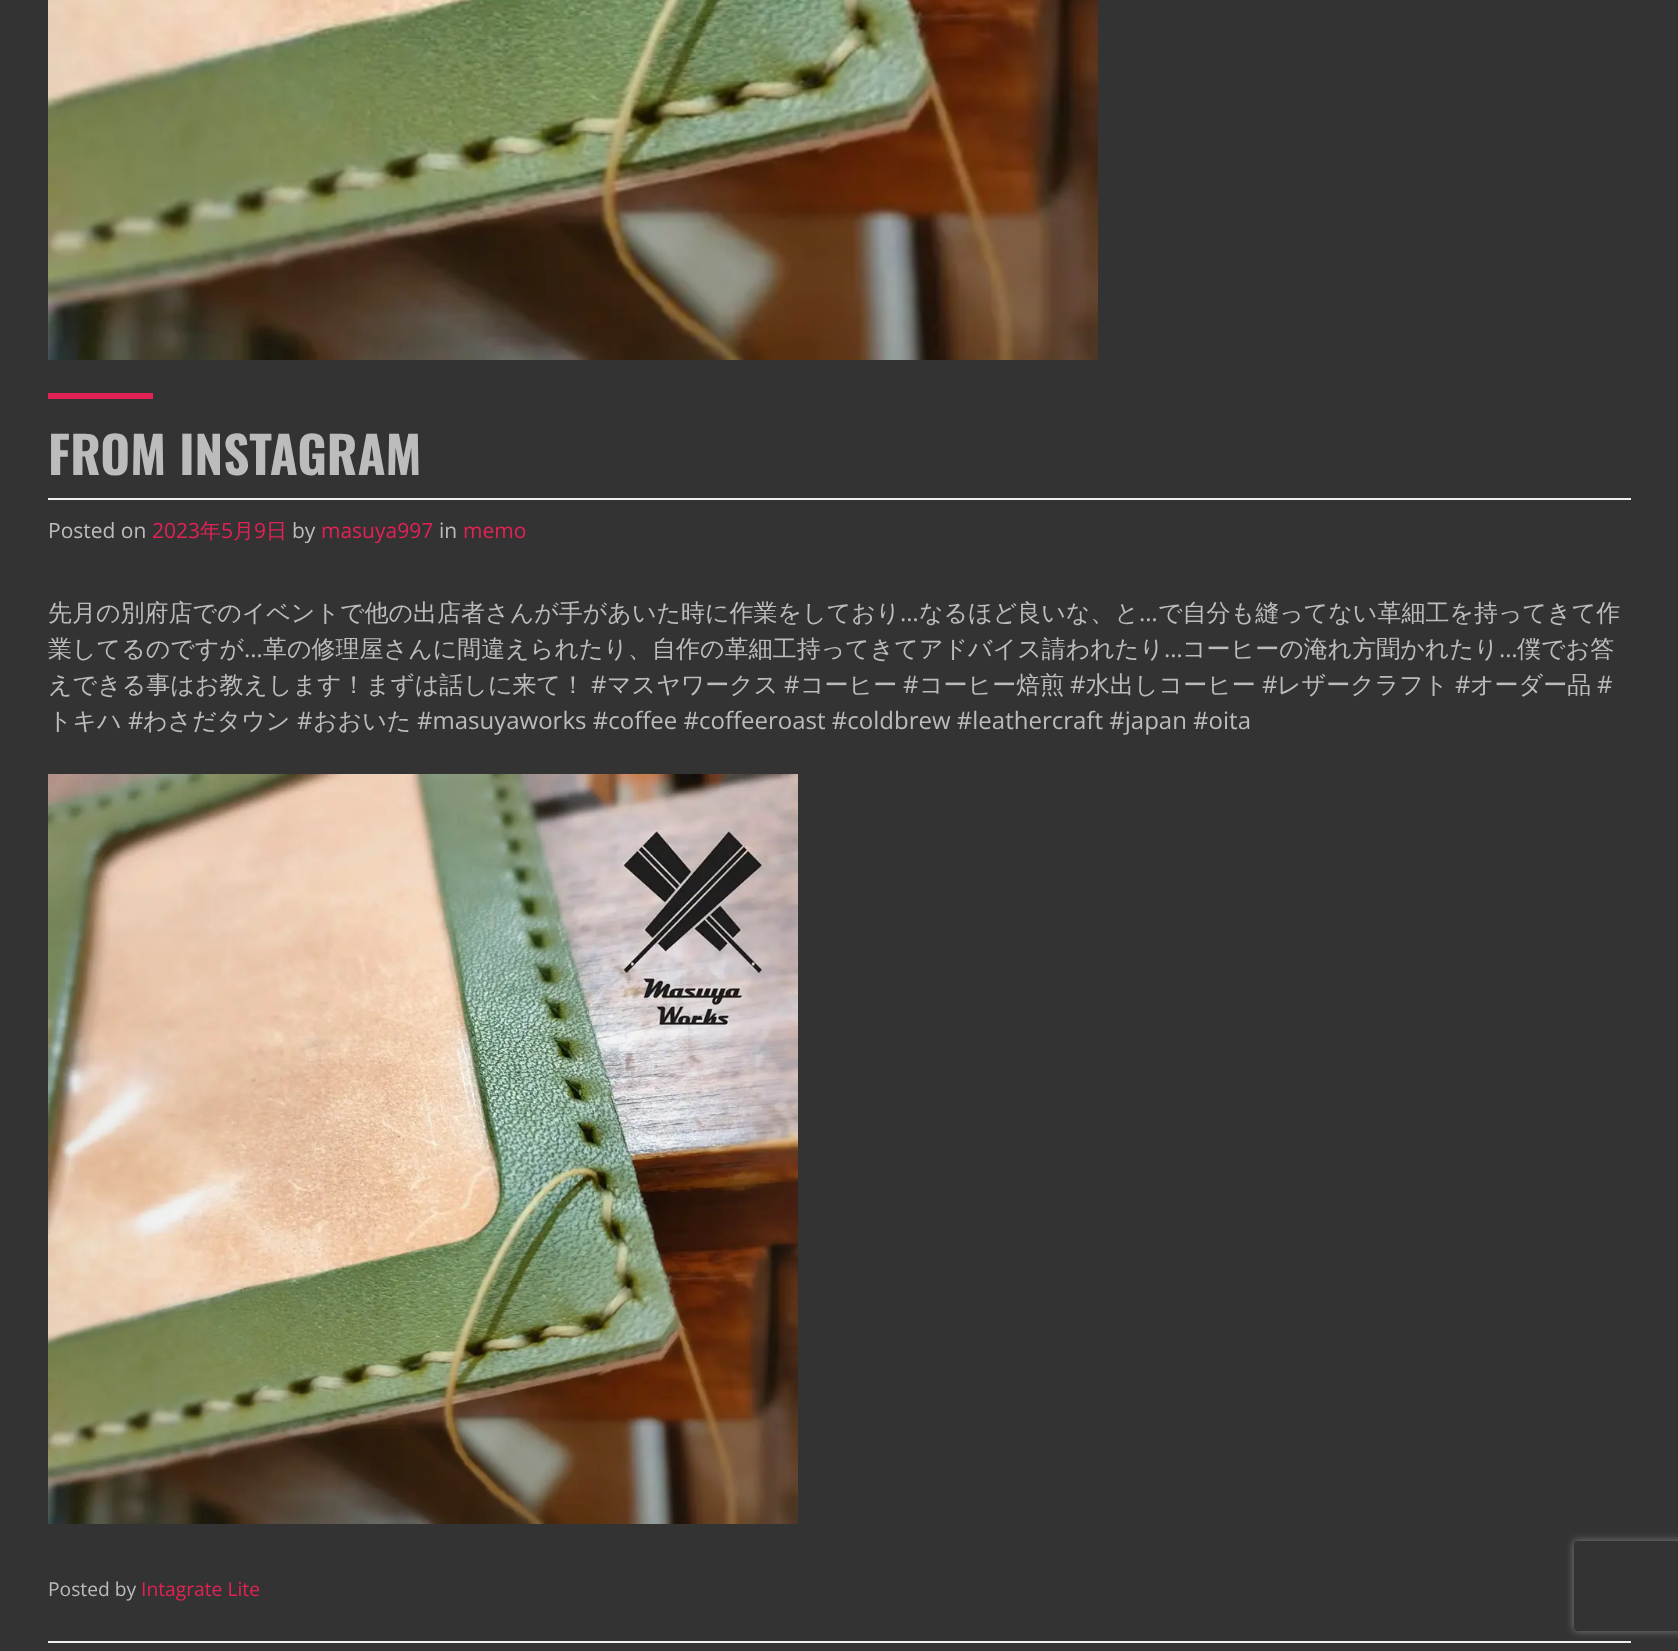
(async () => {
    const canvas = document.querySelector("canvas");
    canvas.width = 1678;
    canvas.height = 1651;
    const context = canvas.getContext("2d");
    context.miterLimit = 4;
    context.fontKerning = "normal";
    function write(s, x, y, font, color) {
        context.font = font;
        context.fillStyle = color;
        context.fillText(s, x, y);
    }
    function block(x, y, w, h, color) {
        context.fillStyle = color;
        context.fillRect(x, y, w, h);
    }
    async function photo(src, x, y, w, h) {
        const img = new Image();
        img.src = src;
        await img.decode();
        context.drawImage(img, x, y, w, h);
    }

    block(0, 0, 1678, 1651, "rgb(51, 51, 51)");
    await photo("media/1.png", 48, 0, 1050, 360);
    block(48, 393, 105, 6, "rgb(226, 34, 85)");
    write("FROM INSTAGRAM", 48, 475, "bold 51px Oswald", "rgb(188, 188, 188)");
    block(48, 498, 1583, 2, "rgb(239, 239, 239)");
    write("Posted on", 48, 538, "21px Open Sans", "rgb(188, 188, 188)");
    write("2023", 152, 538, "21px Open Sans", "rgb(226, 34, 85)");
    write("年", 200, 538, "500 21px WenQuanYi Zen Hei", "rgb(226, 34, 85)");
    write("5", 221, 538, "21px Open Sans", "rgb(226, 34, 85)");
    write("月", 233, 538, "500 21px WenQuanYi Zen Hei", "rgb(226, 34, 85)");
    write("9", 254, 538, "21px Open Sans", "rgb(226, 34, 85)");
    write("日", 266, 538, "500 21px WenQuanYi Zen Hei", "rgb(226, 34, 85)");
    write("by", 292, 538, "21px Open Sans", "rgb(188, 188, 188)");
    write("masuya997", 321, 538, "21px Open Sans", "rgb(226, 34, 85)");
    write("in", 439, 538, "21px Open Sans", "rgb(188, 188, 188)");
    write("memo", 463, 538, "21px Open Sans", "rgb(226, 34, 85)");
    write("先月の別府店でのイベントで他の出店者さんが手があいた時に作業をしており", 48, 621, "500 24px WenQuanYi Zen Hei", "rgb(188, 188, 188)");
    write("…", 900, 621, "24px Open Sans", "rgb(188, 188, 188)");
    write("なるほど良いな、と", 919, 621, "500 24px WenQuanYi Zen Hei", "rgb(188, 188, 188)");
    write("…", 1139, 621, "24px Open Sans", "rgb(188, 188, 188)");
    write("で自分も縫ってない革細工を持ってきて作", 1158, 621, "500 24px WenQuanYi Zen Hei", "rgb(188, 188, 188)");
    write("業してるのですが", 48, 657, "500 24px WenQuanYi Zen Hei", "rgb(188, 188, 188)");
    write("…", 244, 657, "24px Open Sans", "rgb(188, 188, 188)");
    write("革の修理屋さんに間違えられたり、自作の革細工持ってきてアドバイス請われたり", 263, 657, "500 24px WenQuanYi Zen Hei", "rgb(188, 188, 188)");
    write("…", 1164, 657, "24px Open Sans", "rgb(188, 188, 188)");
    write("コーヒーの淹れ方聞かれたり", 1182, 657, "500 24px WenQuanYi Zen Hei", "rgb(188, 188, 188)");
    write("…", 1499, 657, "24px Open Sans", "rgb(188, 188, 188)");
    write("僕でお答", 1517, 657, "500 24px WenQuanYi Zen Hei", "rgb(188, 188, 188)");
    write("えできる事はお教えします！まずは話しに来て！", 48, 693, "500 24px WenQuanYi Zen Hei", "rgb(188, 188, 188)");
    write("#", 591, 693, "24px Open Sans", "rgb(188, 188, 188)");
    write("マスヤワークス", 607, 693, "500 24px WenQuanYi Zen Hei", "rgb(188, 188, 188)");
    write("#", 784, 693, "24px Open Sans", "rgb(188, 188, 188)");
    write("コーヒー", 800, 693, "500 24px WenQuanYi Zen Hei", "rgb(188, 188, 188)");
    write("#", 903, 693, "24px Open Sans", "rgb(188, 188, 188)");
    write("コーヒー焙煎", 919, 693, "500 24px WenQuanYi Zen Hei", "rgb(188, 188, 188)");
    write("#", 1070, 693, "24px Open Sans", "rgb(188, 188, 188)");
    write("水出しコーヒー", 1086, 693, "500 24px WenQuanYi Zen Hei", "rgb(188, 188, 188)");
    write("#", 1262, 693, "24px Open Sans", "rgb(188, 188, 188)");
    write("レザークラフト", 1277, 693, "500 24px WenQuanYi Zen Hei", "rgb(188, 188, 188)");
    write("#", 1455, 693, "24px Open Sans", "rgb(188, 188, 188)");
    write("オーダー品", 1470, 693, "500 24px WenQuanYi Zen Hei", "rgb(188, 188, 188)");
    write("#", 1597, 693, "24px Open Sans", "rgb(188, 188, 188)");
    write("トキハ", 48, 729, "500 24px WenQuanYi Zen Hei", "rgb(188, 188, 188)");
    write("#", 128, 729, "24px Open Sans", "rgb(188, 188, 188)");
    write("わさだタウン", 143, 729, "500 24px WenQuanYi Zen Hei", "rgb(188, 188, 188)");
    write("#", 297, 729, "24px Open Sans", "rgb(188, 188, 188)");
    write("おおいた", 313, 729, "500 24px WenQuanYi Zen Hei", "rgb(188, 188, 188)");
    write("#masuyaworks #coffee #coffeeroast #coldbrew #leathercraft #japan #oita", 417, 729, "24px Open Sans", "rgb(188, 188, 188)");
    await photo("media/2.png", 48, 774, 750, 750);
    write("Posted by", 48, 1596, "19.25px Open Sans", "rgb(188, 188, 188)");
    write("Intagrate Lite", 141, 1596, "19.25px Open Sans", "rgb(226, 34, 85)");
    block(48, 1641, 1583, 2, "rgb(239, 239, 239)");
    context.save();
    context.beginPath();
    context.moveTo(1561, 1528);
    context.lineTo(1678, 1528);
    context.lineTo(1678, 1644);
    context.lineTo(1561, 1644);
    context.closePath();
    context.moveTo(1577, 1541);
    context.lineTo(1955, 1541);
    context.bezierCurveTo(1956.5, 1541, 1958, 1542.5, 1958, 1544);
    context.lineTo(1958, 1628);
    context.bezierCurveTo(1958, 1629.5, 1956.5, 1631, 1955, 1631);
    context.lineTo(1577, 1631);
    context.bezierCurveTo(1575.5, 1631, 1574, 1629.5, 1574, 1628);
    context.lineTo(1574, 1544);
    context.bezierCurveTo(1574, 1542.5, 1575.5, 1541, 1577, 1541);
    context.closePath();
    context.clip("evenodd");
    context.fillStyle = "rgb(128, 128, 128)";
    context.filter = "blur(4px)";
    context.beginPath();
    context.roundRect(1574, 1541, 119, 90, 3);
    context.fill();
    context.filter = "none";
    context.restore();
})();
